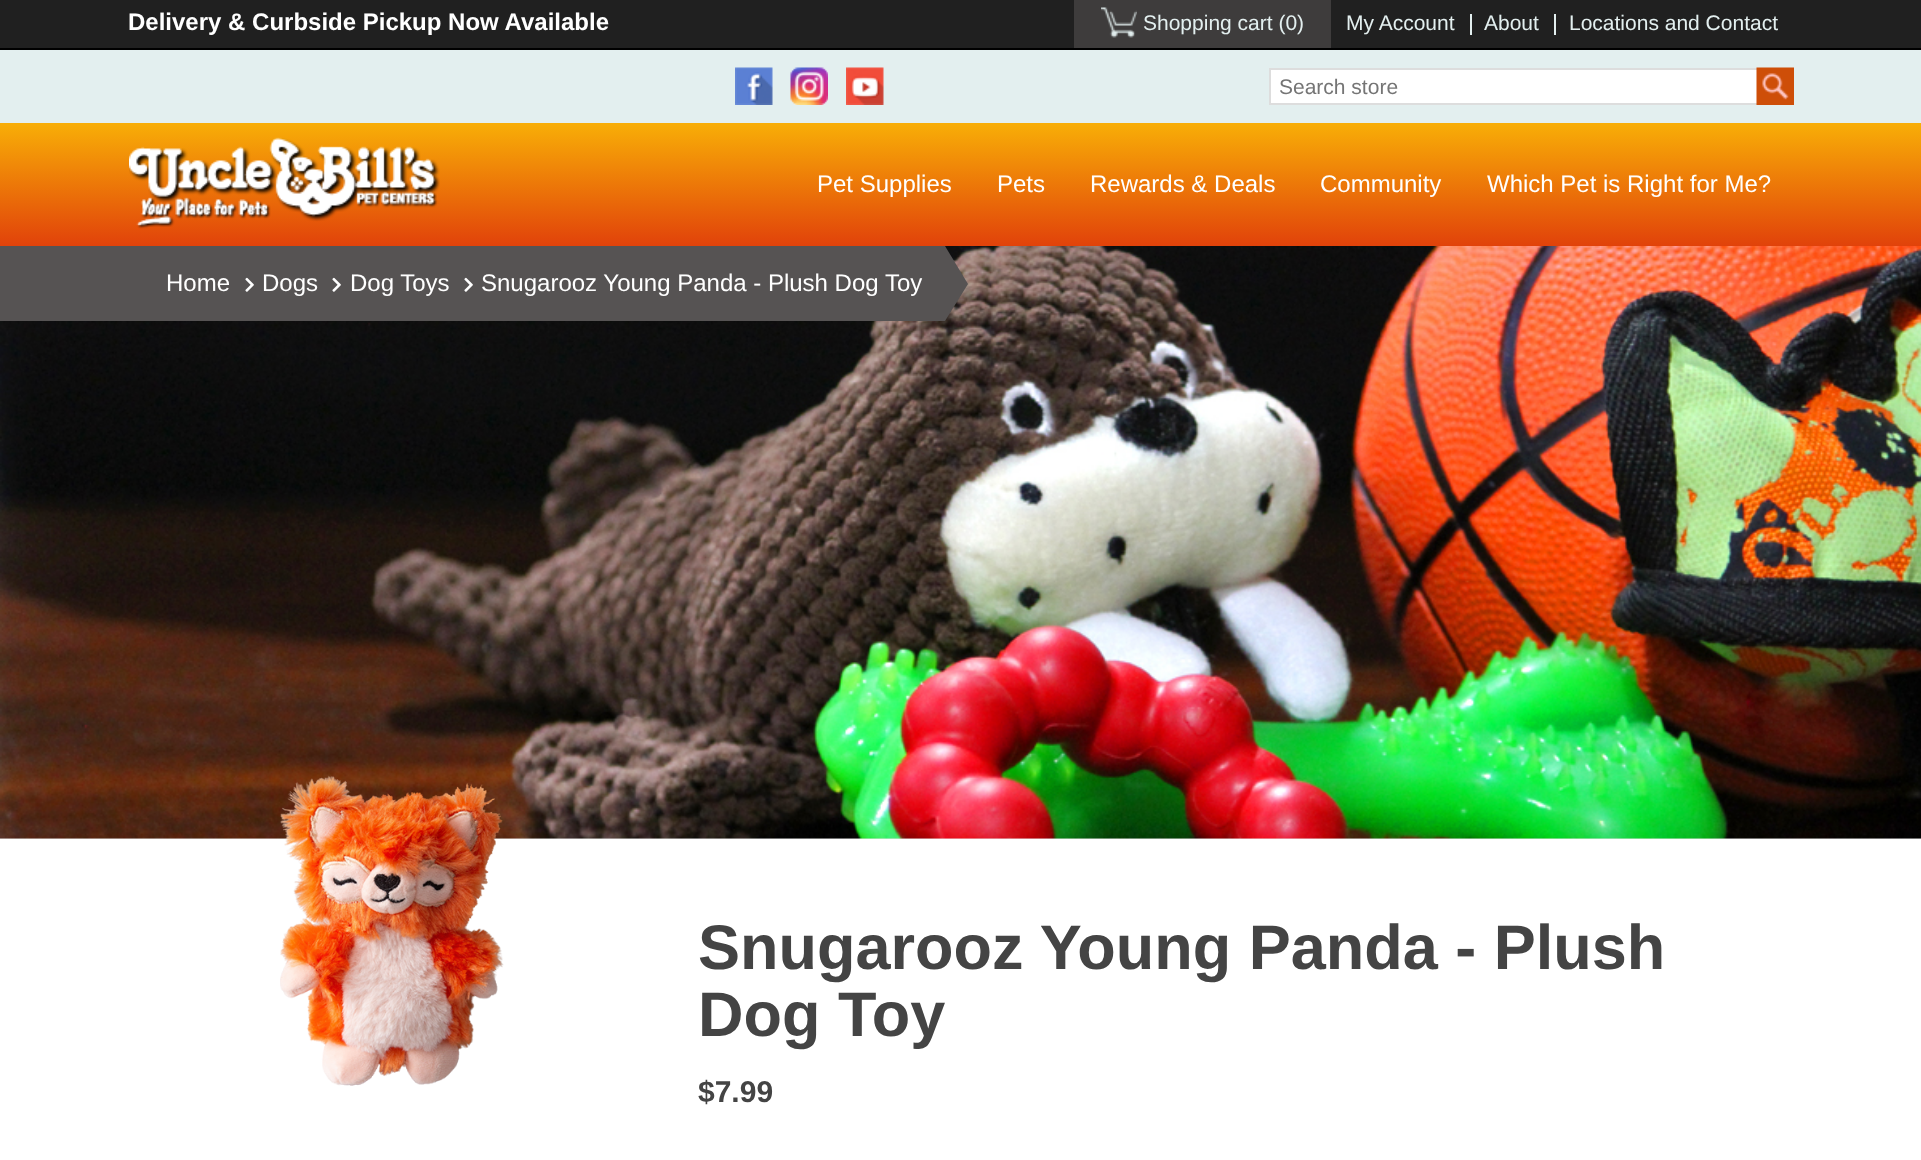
(async () => {
    const canvas = document.querySelector("canvas");
    canvas.width = 1921;
    canvas.height = 1160;
    const context = canvas.getContext("2d");
    context.miterLimit = 4;
    context.fontKerning = "normal";
    function write(s, x, y, font, color) {
        context.font = font;
        context.fillStyle = color;
        context.fillText(s, x, y);
    }
    function block(x, y, w, h, color) {
        context.fillStyle = color;
        context.fillRect(x, y, w, h);
    }
    async function photo(src, x, y, w, h) {
        const img = new Image();
        img.src = src;
        await img.decode();
        context.drawImage(img, x, y, w, h);
    }
    let gradient;

    block(0, 0, 1921, 1160, "rgb(255, 255, 255)");
    block(0, 0, 1921, 48, "rgb(32, 32, 32)");
    block(0, 48, 1921, 2, "rgb(0, 0, 0)");
    write("Delivery & Curbside Pickup Now Available", 128, 30, "bold 24px Liberation Sans", "rgb(255, 255, 255)");
    block(1074, 0, 257, 48, "rgb(62, 60, 60)");
    await photo("media/1.png", 1101, 7, 36, 31);
    write("Shopping cart (0)", 1143, 30, "21px Liberation Sans", "rgb(227, 239, 239)");
    write("My Account", 1346, 30, "21px Liberation Sans", "rgb(227, 239, 239)");
    block(1470, 14, 2, 21, "rgb(227, 239, 239)");
    write("About", 1484, 30, "21px Liberation Sans", "rgb(227, 239, 239)");
    block(1554, 14, 2, 21, "rgb(227, 239, 239)");
    write("Locations and Contact", 1569, 30, "21px Liberation Sans", "rgb(227, 239, 239)");
    block(0, 50, 1921, 73, "rgb(227, 239, 239)");
    await photo("media/2.png", 735, 67, 38, 38);
    await photo("media/3.png", 790, 67, 38, 38);
    await photo("media/4.png", 846, 67, 38, 38);
    block(1271, 70, 486, 33, "rgb(255, 255, 255)");
    context.strokeStyle = "rgb(221, 221, 221)";
    context.lineWidth = 2;
    context.strokeRect(1270, 69, 523, 35);
    write("Search store", 1279, 94, "21px Liberation Sans", "rgb(117, 117, 117)");
    await photo("media/5.png", 1756, 67, 38, 38);
    gradient = context.createLinearGradient(961, 123, 961, 246);
    gradient.addColorStop(0.01, "rgb(248, 173, 7)");
    gradient.addColorStop(1, "rgb(225, 66, 10)");
    context.fillStyle = gradient;
    context.fillRect(0, 123, 1921, 123);
    await photo("media/6.png", 129, 137, 311, 92);
    write("Pet Supplies", 817, 192, "24px Liberation Sans", "rgb(255, 255, 255)");
    write("Pets", 997, 192, "24px Liberation Sans", "rgb(255, 255, 255)");
    write("Rewards & Deals", 1090, 192, "24px Liberation Sans", "rgb(255, 255, 255)");
    write("Community", 1320, 192, "24px Liberation Sans", "rgb(255, 255, 255)");
    write("Which Pet is Right for Me?", 1487, 192, "24px Liberation Sans", "rgb(255, 255, 255)");
    block(0, 838, 1921, 1, "rgb(226, 226, 226)");
    await photo("media/7.png", 0, 246, 1921, 593);
    block(0, 246, 945, 75, "rgb(86, 83, 83)");
    write("Home", 166, 291, "24px Liberation Sans", "rgb(255, 255, 255)");
    await photo("media/8.png", 245, 277, 9, 15);
    write("Dogs", 262, 291, "24px Liberation Sans", "rgb(255, 255, 255)");
    await photo("media/8.png", 332, 277, 9, 15);
    write("Dog Toys", 350, 291, "24px Liberation Sans", "rgb(255, 255, 255)");
    await photo("media/8.png", 464, 277, 9, 15);
    write("Snugarooz Young Panda - Plush Dog Toy", 481, 291, "24px Liberation Sans", "rgb(255, 255, 255)");
    context.fillStyle = "rgb(86, 83, 83)";
    context.beginPath();
    context.moveTo(945, 321);
    context.lineTo(945, 246);
    context.lineTo(968, 284);
    context.closePath();
    context.fill();
    await photo("media/9.png", 280, 775, 224, 311);
    write("Snugarooz Young Panda - Plush", 698, 969, "bold 63px Liberation Sans", "rgb(68, 68, 68)");
    write("Dog Toy", 698, 1036, "bold 63px Liberation Sans", "rgb(68, 68, 68)");
    write("$7.99", 698, 1102, "bold 30px Liberation Sans", "rgb(68, 68, 68)");
})();
